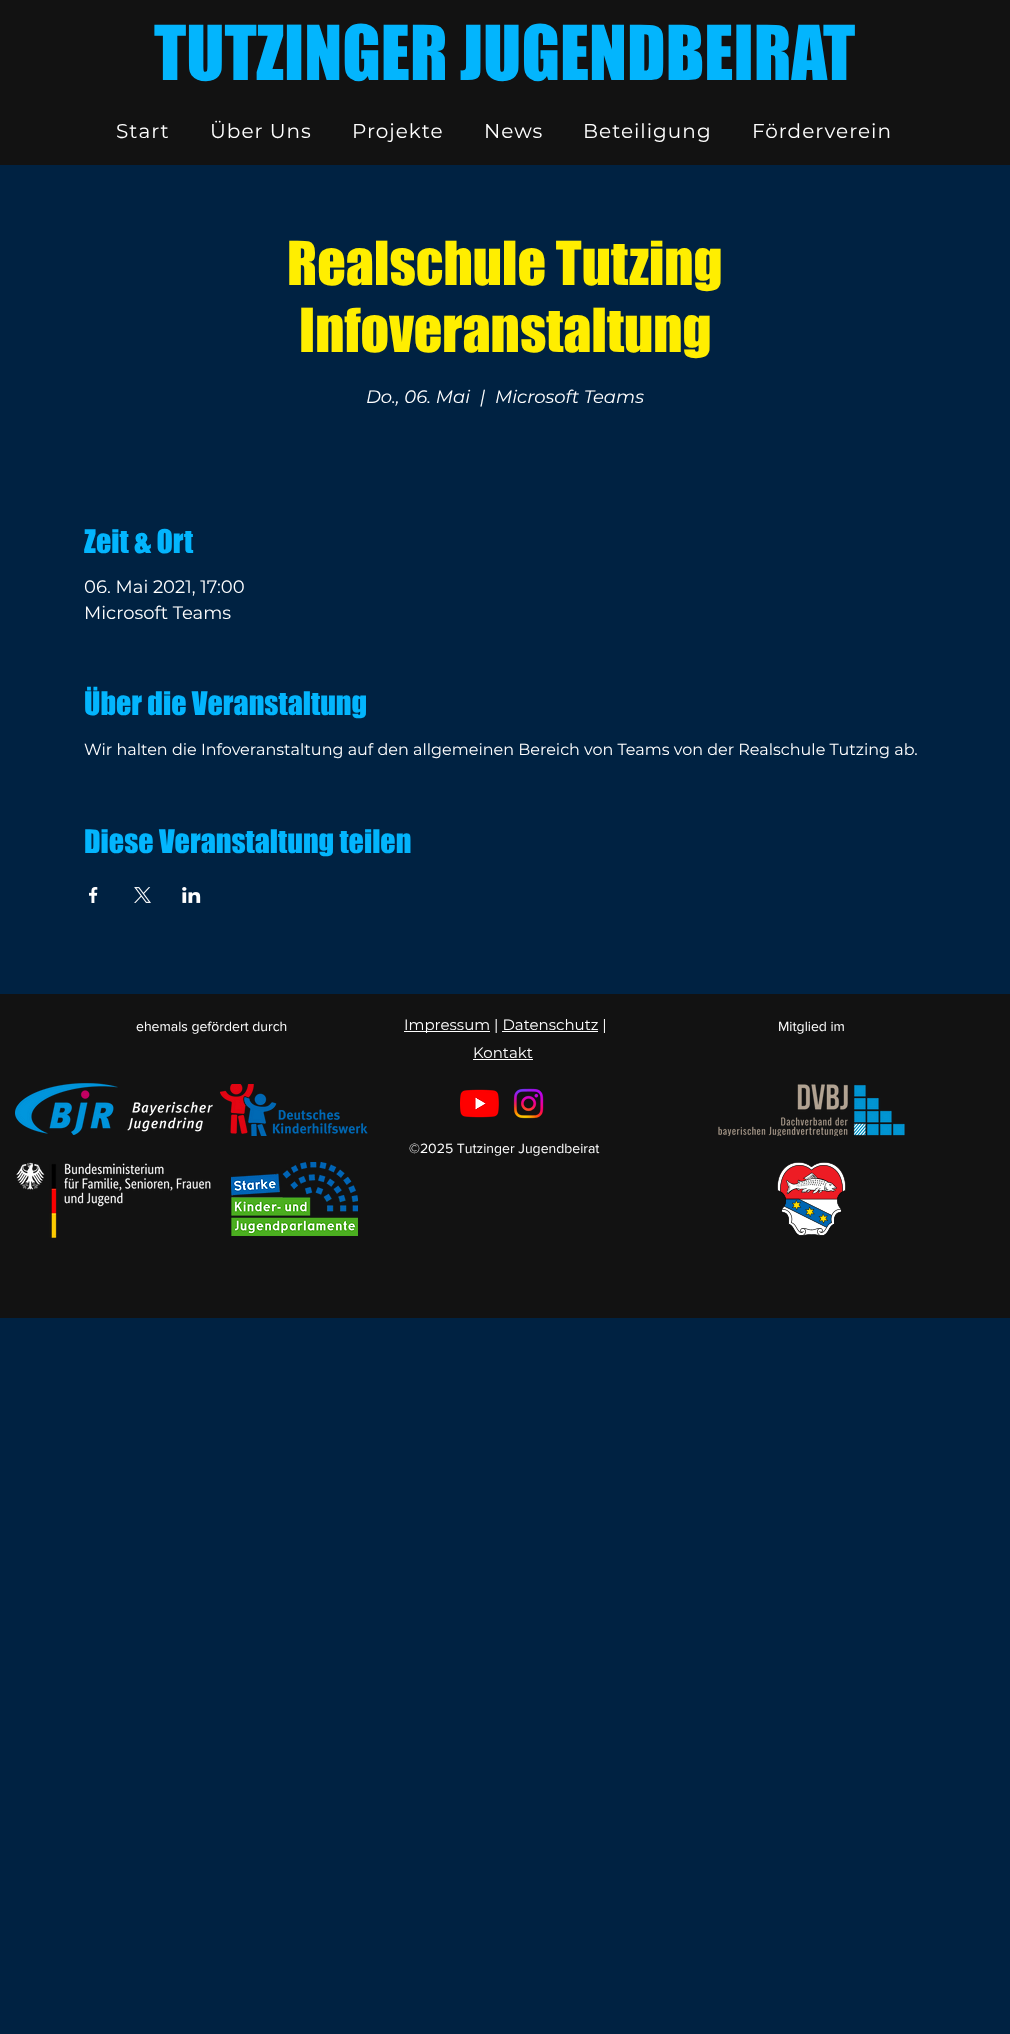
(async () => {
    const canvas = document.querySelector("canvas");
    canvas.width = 1010;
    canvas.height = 2034;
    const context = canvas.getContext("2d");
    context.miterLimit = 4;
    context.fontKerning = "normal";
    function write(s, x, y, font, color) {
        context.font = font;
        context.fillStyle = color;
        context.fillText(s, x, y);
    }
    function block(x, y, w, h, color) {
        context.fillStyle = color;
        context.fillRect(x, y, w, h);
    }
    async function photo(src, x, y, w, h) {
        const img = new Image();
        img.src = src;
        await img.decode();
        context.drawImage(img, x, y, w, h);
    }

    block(0, 0, 1010, 2034, "rgb(0, 34, 66)");
    block(0, 0, 1010, 165, "rgb(18, 18, 18)");
    write("TUTZINGER JUGENDBEIRAT", 154, 80, "70px 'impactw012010'", "rgb(3, 181, 253)");
    context.letterSpacing = "1px";
    write("Start", 116, 138, "20px Montserrat", "rgb(255, 255, 255)");
    write("Über Uns", 210, 138, "20px Montserrat", "rgb(255, 255, 255)");
    write("Projekte", 352, 138, "20px Montserrat", "rgb(255, 255, 255)");
    write("News", 484, 138, "20px Montserrat", "rgb(255, 255, 255)");
    write("Beteiligung", 583, 138, "20px Montserrat", "rgb(255, 255, 255)");
    write("Förderverein", 752, 138, "20px Montserrat", "rgb(255, 255, 255)");
    context.letterSpacing = "0px";
    write("Realschule Tutzing", 287, 285, "56px 'impactw012010'", "rgb(255, 238, 0)");
    write("Infoveranstaltung", 299, 352, "56px 'impactw012010'", "rgb(255, 238, 0)");
    write("Do., 06. Mai", 366, 403, "italic 18px Montserrat", "rgb(255, 255, 255)");
    write("|", 480, 403, "italic 18px Montserrat", "rgb(255, 255, 255)");
    write("Microsoft Teams", 495, 403, "italic 18px Montserrat", "rgb(255, 255, 255)");
    write("Zeit & Ort", 84, 553, "30px 'impactw012010'", "rgb(3, 181, 253)");
    write("06. Mai 2021, 17:00", 84, 593, "18px Montserrat", "rgb(255, 255, 255)");
    write("Microsoft Teams", 84, 619, "18px Montserrat", "rgb(255, 255, 255)");
    write("Über die Veranstaltung", 84, 715, "30px 'impactw012010'", "rgb(3, 181, 253)");
    write("Wir halten die Infoveranstaltung auf den allgemeinen Bereich von Teams von der Realschule Tutzing ab.", 84, 755, "16px Montserrat", "rgb(255, 255, 255)");
    write("Diese Veranstaltung teilen", 84, 853, "30px 'impactw012010'", "rgb(3, 181, 253)");
    await photo("media/1.png", 89, 887, 9, 16);
    await photo("media/2.png", 134, 887, 17, 16);
    await photo("media/3.png", 182, 887, 19, 16);
    block(0, 994, 1010, 324, "rgb(18, 18, 18)");
    write("ehemals gefördert durch", 136, 1031, "14px 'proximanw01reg'", "rgb(255, 255, 255)");
    block(404, 1031, 86, 1, "rgb(255, 255, 255)");
    write("Impressum | Datenschutz |", 404, 1030, "15px Montserrat", "rgb(255, 255, 255)");
    block(502, 1031, 96, 1, "rgb(255, 255, 255)");
    write("Kontakt", 473, 1058, "15px Montserrat", "rgb(255, 255, 255)");
    block(473, 1059, 60, 1, "rgb(255, 255, 255)");
    write("Mitglied im", 778, 1031, "14px 'proximanw01reg'", "rgb(255, 255, 255)");
    await photo("media/4.png", 15, 1083, 198, 52);
    await photo("media/5.png", 220, 1084, 148, 52);
    await photo("media/6.png", 460, 1089, 39, 29);
    await photo("media/7.png", 513, 1088, 31, 31);
    await photo("media/8.png", 718, 1084, 187, 52);
    write("©2025 Tutzinger Jugendbeirat", 409, 1153, "14px 'proximanw01reg'", "rgb(255, 255, 255)");
    await photo("media/9.png", 16, 1162, 195, 76);
    await photo("media/10.png", 231, 1162, 127, 74);
    await photo("media/11.png", 777, 1162, 69, 74);
})();
